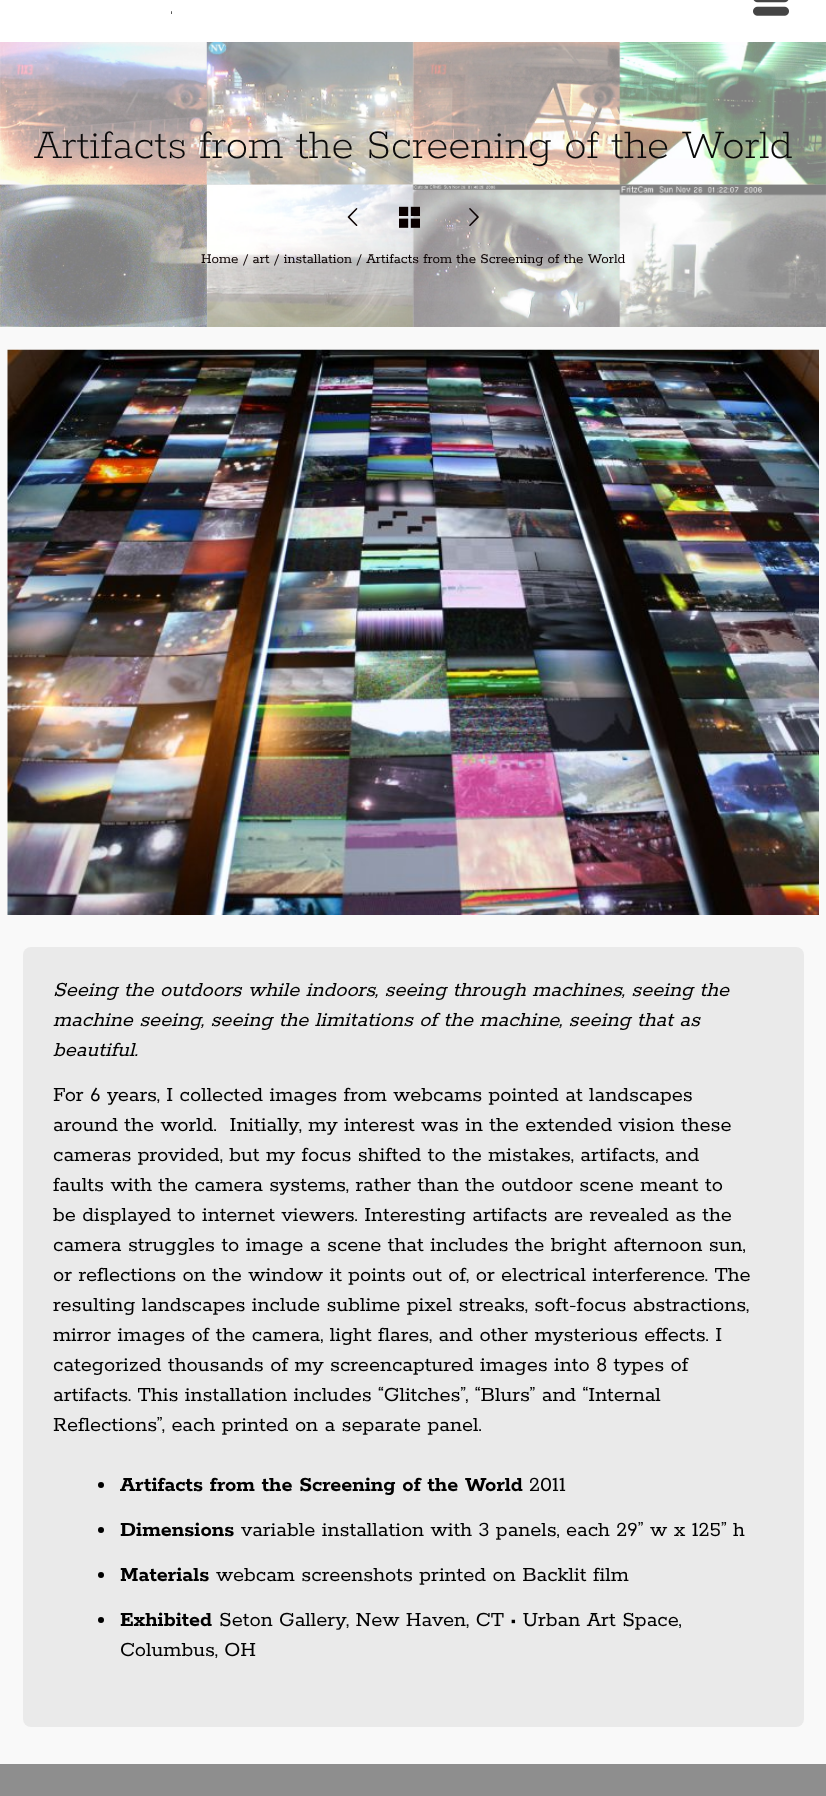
(async () => {
    const canvas = document.querySelector("canvas");
    canvas.width = 826;
    canvas.height = 1796;
    const context = canvas.getContext("2d");
    context.miterLimit = 4;
    context.fontKerning = "normal";
    function write(s, x, y, font, color) {
        context.font = font;
        context.fillStyle = color;
        context.fillText(s, x, y);
    }
    function block(x, y, w, h, color) {
        context.fillStyle = color;
        context.fillRect(x, y, w, h);
    }
    function card(x, y, w, h, r, color) {
        context.fillStyle = color;
        context.beginPath();
        context.roundRect(x, y, w, h, r);
        context.fill();
    }
    async function photo(src, x, y, w, h) {
        const img = new Image();
        img.src = src;
        await img.decode();
        context.drawImage(img, x, y, w, h);
    }

    block(0, 0, 826, 1796, "rgb(255, 255, 255)");
    write(".", 168, 14, "100 45px Raleway", "rgb(68, 68, 68)");
    await photo("media/1.png", 753, 0, 36, 16);
    block(0, 327, 826, 1437, "rgb(249, 249, 249)");
    await photo("media/2.png", 0, 42, 826, 285);
    write("Artifacts from the Screening of the World", 34, 158, "200 45px Rokkitt", "rgb(10, 10, 10)");
    await photo("media/3.png", 347, 208, 11, 18);
    await photo("media/4.png", 399, 206, 21, 22);
    await photo("media/5.png", 469, 208, 10, 18);
    write("Home / art / installation / Artifacts from the Screening of the World", 201, 263, "15px Rokkitt", "rgb(10, 0, 0)");
    await photo("media/6.png", 7, 349, 812, 566);
    card(23, 947, 781, 780, 8, "rgb(234, 234, 234)");
    write("Seeing the outdoors while indoors, seeing through machines, seeing the", 53, 996, "italic 22.5px Rokkitt", "rgb(0, 0, 0)");
    write("machine seeing, seeing the limitations of the machine, seeing that as", 53, 1026, "italic 22.5px Rokkitt", "rgb(0, 0, 0)");
    write("beautiful.", 53, 1056, "italic 22.5px Rokkitt", "rgb(0, 0, 0)");
    write("For 6 years, I collected images from webcams pointed at landscapes", 53, 1101, "22.5px Rokkitt", "rgb(0, 0, 0)");
    write("around the world.  Initially, my interest was in the extended vision these", 53, 1131, "22.5px Rokkitt", "rgb(0, 0, 0)");
    write("cameras provided, but my focus shifted to the mistakes, artifacts, and", 53, 1161, "22.5px Rokkitt", "rgb(0, 0, 0)");
    write("faults with the camera systems, rather than the outdoor scene meant to", 53, 1191, "22.5px Rokkitt", "rgb(0, 0, 0)");
    write("be displayed to internet viewers. Interesting artifacts are revealed as the", 53, 1221, "22.5px Rokkitt", "rgb(0, 0, 0)");
    write("camera struggles to image a scene that includes the bright afternoon sun,", 53, 1251, "22.5px Rokkitt", "rgb(0, 0, 0)");
    write("or reflections on the window it points out of, or electrical interference. The", 53, 1281, "22.5px Rokkitt", "rgb(0, 0, 0)");
    write("resulting landscapes include sublime pixel streaks, soft-focus abstractions,", 53, 1311, "22.5px Rokkitt", "rgb(0, 0, 0)");
    write("mirror images of the camera, light flares, and other mysterious effects. I", 53, 1341, "22.5px Rokkitt", "rgb(0, 0, 0)");
    write("categorized thousands of my screencaptured images into 8 types of", 53, 1371, "22.5px Rokkitt", "rgb(0, 0, 0)");
    write("artifacts. This installation includes “Glitches”, “Blurs” and “Internal", 53, 1401, "22.5px Rokkitt", "rgb(0, 0, 0)");
    write("Reflections”, each printed on a separate panel.", 53, 1431, "22.5px Rokkitt", "rgb(0, 0, 0)");
    context.beginPath();
    context.arc(101, 1485, 3, 0, Math.PI * 2);
    context.fill();
    write("Artifacts from the Screening of the World", 120, 1491, "bold 22.5px Rokkitt", "rgb(0, 0, 0)");
    write("2011", 529, 1491, "22.5px Rokkitt", "rgb(0, 0, 0)");
    context.beginPath();
    context.arc(101, 1530, 3, 0, Math.PI * 2);
    context.fill();
    write("Dimensions", 120, 1536, "bold 22.5px Rokkitt", "rgb(0, 0, 0)");
    write("variable installation with 3 panels, each 29” w x 125” h", 241, 1536, "22.5px Rokkitt", "rgb(0, 0, 0)");
    context.beginPath();
    context.arc(101, 1575, 3, 0, Math.PI * 2);
    context.fill();
    write("Materials", 120, 1581, "bold 22.5px Rokkitt", "rgb(0, 0, 0)");
    write("webcam screenshots printed on Backlit film", 216, 1581, "22.5px Rokkitt", "rgb(0, 0, 0)");
    context.beginPath();
    context.arc(101, 1620, 3, 0, Math.PI * 2);
    context.fill();
    write("Exhibited", 120, 1626, "bold 22.5px Rokkitt", "rgb(0, 0, 0)");
    write("Seton Gallery, New Haven, CT • Urban Art Space,", 219, 1626, "22.5px Rokkitt", "rgb(0, 0, 0)");
    write("Columbus, OH", 120, 1656, "22.5px Rokkitt", "rgb(0, 0, 0)");
    block(0, 1764, 826, 32, "rgb(142, 142, 142)");
})();
